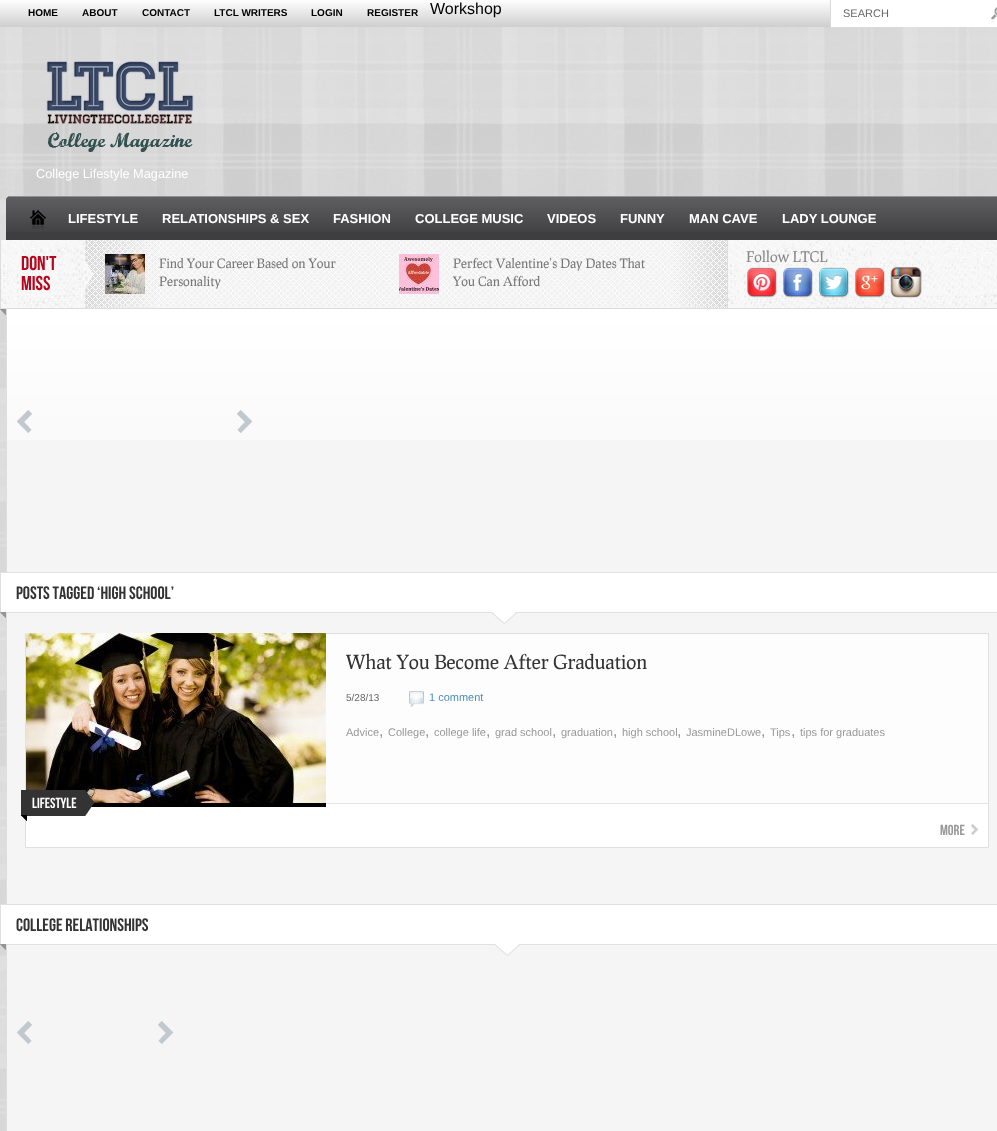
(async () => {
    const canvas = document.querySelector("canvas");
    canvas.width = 997;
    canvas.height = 1131;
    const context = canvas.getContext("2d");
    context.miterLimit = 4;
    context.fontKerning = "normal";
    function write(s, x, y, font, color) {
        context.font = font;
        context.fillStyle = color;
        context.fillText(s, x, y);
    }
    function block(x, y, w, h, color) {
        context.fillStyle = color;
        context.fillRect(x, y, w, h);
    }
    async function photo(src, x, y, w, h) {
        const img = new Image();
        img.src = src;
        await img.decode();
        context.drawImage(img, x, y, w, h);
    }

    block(0, 0, 997, 1131, "rgb(225, 225, 225)");
    await photo("media/1.png", 0, 27, 997, 1104);
    await photo("media/2.png", 0, 0, 830, 27);
    write("HOME", 28, 16, "bold 10px Liberation Sans", "rgb(0, 0, 0)");
    write("ABOUT", 82, 16, "bold 10px Liberation Sans", "rgb(0, 0, 0)");
    write("CONTACT", 142, 16, "bold 10px Liberation Sans", "rgb(0, 0, 0)");
    write("LTCL WRITERS", 214, 16, "bold 10px Liberation Sans", "rgb(0, 0, 0)");
    write("LOGIN", 311, 16, "bold 10px Liberation Sans", "rgb(0, 0, 0)");
    write("REGISTER", 367, 16, "bold 10px Liberation Sans", "rgb(0, 0, 0)");
    write("Workshop", 430, 14, "16px Liberation Sans", "rgb(0, 0, 0)");
    block(831, 0, 166, 27, "rgb(255, 255, 255)");
    block(830, 0, 1, 27, "rgb(217, 217, 217)");
    await photo("media/3.png", 991, 7, 6, 16);
    write("SEARCH", 843, 17, "11px Liberation Sans", "rgb(102, 102, 102)");
    await photo("media/4.png", 46, 61, 148, 91);
    write("College Lifestyle Magazine", 36, 178, "12.75px Liberation Sans", "rgb(255, 255, 255)");
    context.fillStyle = "rgb(62, 62, 64)";
    context.beginPath();
    context.moveTo(11, 196);
    context.lineTo(997, 196);
    context.bezierCurveTo(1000, 196, 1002, 198, 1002, 201);
    context.lineTo(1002, 240);
    context.lineTo(6, 240);
    context.lineTo(6, 201);
    context.bezierCurveTo(6, 198, 8, 196, 11, 196);
    context.closePath();
    context.fill();
    await photo("media/5.png", 6, 197, 991, 35);
    block(9, 196, 988, 1, "rgb(144, 144, 144)");
    await photo("media/6.png", 30, 210, 16, 19);
    write("LIFESTYLE", 68, 223, "bold 13px Liberation Sans", "rgb(255, 255, 255)");
    write("RELATIONSHIPS & SEX", 162, 223, "bold 13px Liberation Sans", "rgb(255, 255, 255)");
    write("FASHION", 333, 223, "bold 13px Liberation Sans", "rgb(255, 255, 255)");
    write("COLLEGE MUSIC", 415, 223, "bold 13px Liberation Sans", "rgb(255, 255, 255)");
    write("VIDEOS", 547, 223, "bold 13px Liberation Sans", "rgb(255, 255, 255)");
    write("FUNNY", 620, 223, "bold 13px Liberation Sans", "rgb(255, 255, 255)");
    write("MAN CAVE", 689, 223, "bold 13px Liberation Sans", "rgb(255, 255, 255)");
    write("LADY LOUNGE", 782, 223, "bold 13px Liberation Sans", "rgb(255, 255, 255)");
    await photo("media/7.png", 85, 240, 642, 68);
    block(0, 308, 997, 1, "rgb(221, 221, 221)");
    await photo("media/8.png", 1, 240, 84, 68);
    block(0, 251, 1, 11, "rgb(221, 221, 221)");
    write("DON'T", 21, 270, "20px Bebas Neue", "rgb(181, 7, 30)");
    write("MISS", 21, 290, "20px Bebas Neue", "rgb(181, 7, 30)");
    await photo("media/9.png", 84, 261, 10, 27);
    await photo("media/10.png", 105, 254, 40, 40);
    write("Find Your Career Based on Your", 159, 268, "12.75px Prociono", "rgb(119, 119, 119)");
    write("Personality", 159, 286, "12.75px Prociono", "rgb(119, 119, 119)");
    await photo("media/11.png", 399, 254, 40, 40);
    write("Perfect Valentine’s Day Dates That", 453, 268, "12.75px Prociono", "rgb(119, 119, 119)");
    write("You Can Afford", 453, 286, "12.75px Prociono", "rgb(119, 119, 119)");
    await photo("media/12.png", 728, 240, 269, 68);
    block(727, 250, 1, 58, "rgb(221, 221, 221)");
    write("Follow LTCL", 746, 262, "14.5px Prociono", "rgb(136, 136, 136)");
    await photo("media/13.png", 747, 267, 30, 31);
    await photo("media/14.png", 783, 267, 30, 31);
    await photo("media/15.png", 819, 267, 30, 31);
    await photo("media/16.png", 855, 267, 30, 31);
    await photo("media/17.png", 890, 267, 32, 31);
    await photo("media/18.png", 0, 309, 6, 6);
    block(7, 440, 990, 691, "rgb(245, 245, 245)");
    await photo("media/19.png", 7, 309, 990, 131);
    block(6, 309, 1, 822, "rgb(221, 221, 221)");
    await photo("media/20.png", 17, 410, 15, 23);
    await photo("media/21.png", 237, 410, 15, 23);
    context.strokeStyle = "rgb(224, 224, 224)";
    context.strokeRect(0.5, 572.5, 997, 40);
    block(1, 573, 996, 39, "rgb(255, 255, 255)");
    write("POSTS TAGGED ‘HIGH SCHOOL’", 16, 599, "18px Bebas Neue", "rgb(51, 51, 51)");
    await photo("media/22.png", 0, 612, 6, 6);
    await photo("media/23.png", 492, 612, 25, 12);
    block(26, 804, 962, 43, "rgb(255, 255, 255)");
    block(988, 633, 1, 215, "rgb(224, 224, 224)");
    block(25, 847, 964, 1, "rgb(224, 224, 224)");
    block(25, 633, 1, 215, "rgb(224, 224, 224)");
    block(91, 803, 235, 4, "rgb(0, 0, 0)");
    await photo("media/24.png", 26, 633, 300, 170);
    block(326, 634, 662, 169, "rgb(253, 253, 253)");
    block(326, 633, 662, 1, "rgb(223, 223, 223)");
    block(326, 803, 662, 1, "rgb(230, 230, 230)");
    write("What You Become After Graduation", 346, 669, "19.25px Prociono", "rgb(51, 51, 51)");
    write("5/28/13", 346, 701, "10px Liberation Sans", "rgb(102, 102, 102)");
    await photo("media/25.png", 409, 691, 15, 16);
    write("1 comment", 429, 701, "11px Liberation Sans", "rgb(76, 142, 185)");
    write("Advice", 346, 736, "11px Liberation Sans", "rgb(153, 153, 153)");
    write(",", 379, 736, "16px Liberation Sans", "rgb(153, 153, 153)");
    write("College", 388, 736, "11px Liberation Sans", "rgb(153, 153, 153)");
    write(",", 425, 736, "16px Liberation Sans", "rgb(153, 153, 153)");
    write("college life", 434, 736, "11px Liberation Sans", "rgb(153, 153, 153)");
    write(",", 486, 736, "16px Liberation Sans", "rgb(153, 153, 153)");
    write("grad school", 495, 736, "11px Liberation Sans", "rgb(153, 153, 153)");
    write(",", 552, 736, "16px Liberation Sans", "rgb(153, 153, 153)");
    write("graduation", 561, 736, "11px Liberation Sans", "rgb(153, 153, 153)");
    write(",", 613, 736, "16px Liberation Sans", "rgb(153, 153, 153)");
    write("high school", 622, 736, "11px Liberation Sans", "rgb(153, 153, 153)");
    write(",", 677, 736, "16px Liberation Sans", "rgb(153, 153, 153)");
    write("JasmineDLowe", 686, 736, "11px Liberation Sans", "rgb(153, 153, 153)");
    write(",", 761, 736, "16px Liberation Sans", "rgb(153, 153, 153)");
    write("Tips", 770, 736, "11px Liberation Sans", "rgb(153, 153, 153)");
    write(",", 791, 736, "16px Liberation Sans", "rgb(153, 153, 153)");
    write("tips for graduates", 800, 736, "11px Liberation Sans", "rgb(153, 153, 153)");
    block(21, 790, 64, 26, "rgb(51, 51, 51)");
    write("Lifestyle", 32, 808, "14.5px Bebas Neue", "rgb(255, 255, 255)");
    await photo("media/26.png", 85, 790, 9, 26);
    await photo("media/27.png", 21, 815, 6, 6);
    await photo("media/28.png", 971, 824, 7, 11);
    write("More", 940, 835, "14.5px Bebas Neue", "rgb(153, 153, 153)");
    context.strokeRect(0.5, 904.5, 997, 40);
    block(1, 905, 996, 39, "rgb(255, 255, 255)");
    write("COLLEGE RELATIONSHIPS", 16, 931, "18px Bebas Neue", "rgb(51, 51, 51)");
    await photo("media/29.png", 0, 944, 6, 6);
    await photo("media/23.png", 495, 944, 25, 12);
    await photo("media/30.png", 17, 1021, 15, 23);
    await photo("media/31.png", 158, 1021, 15, 23);
})();
